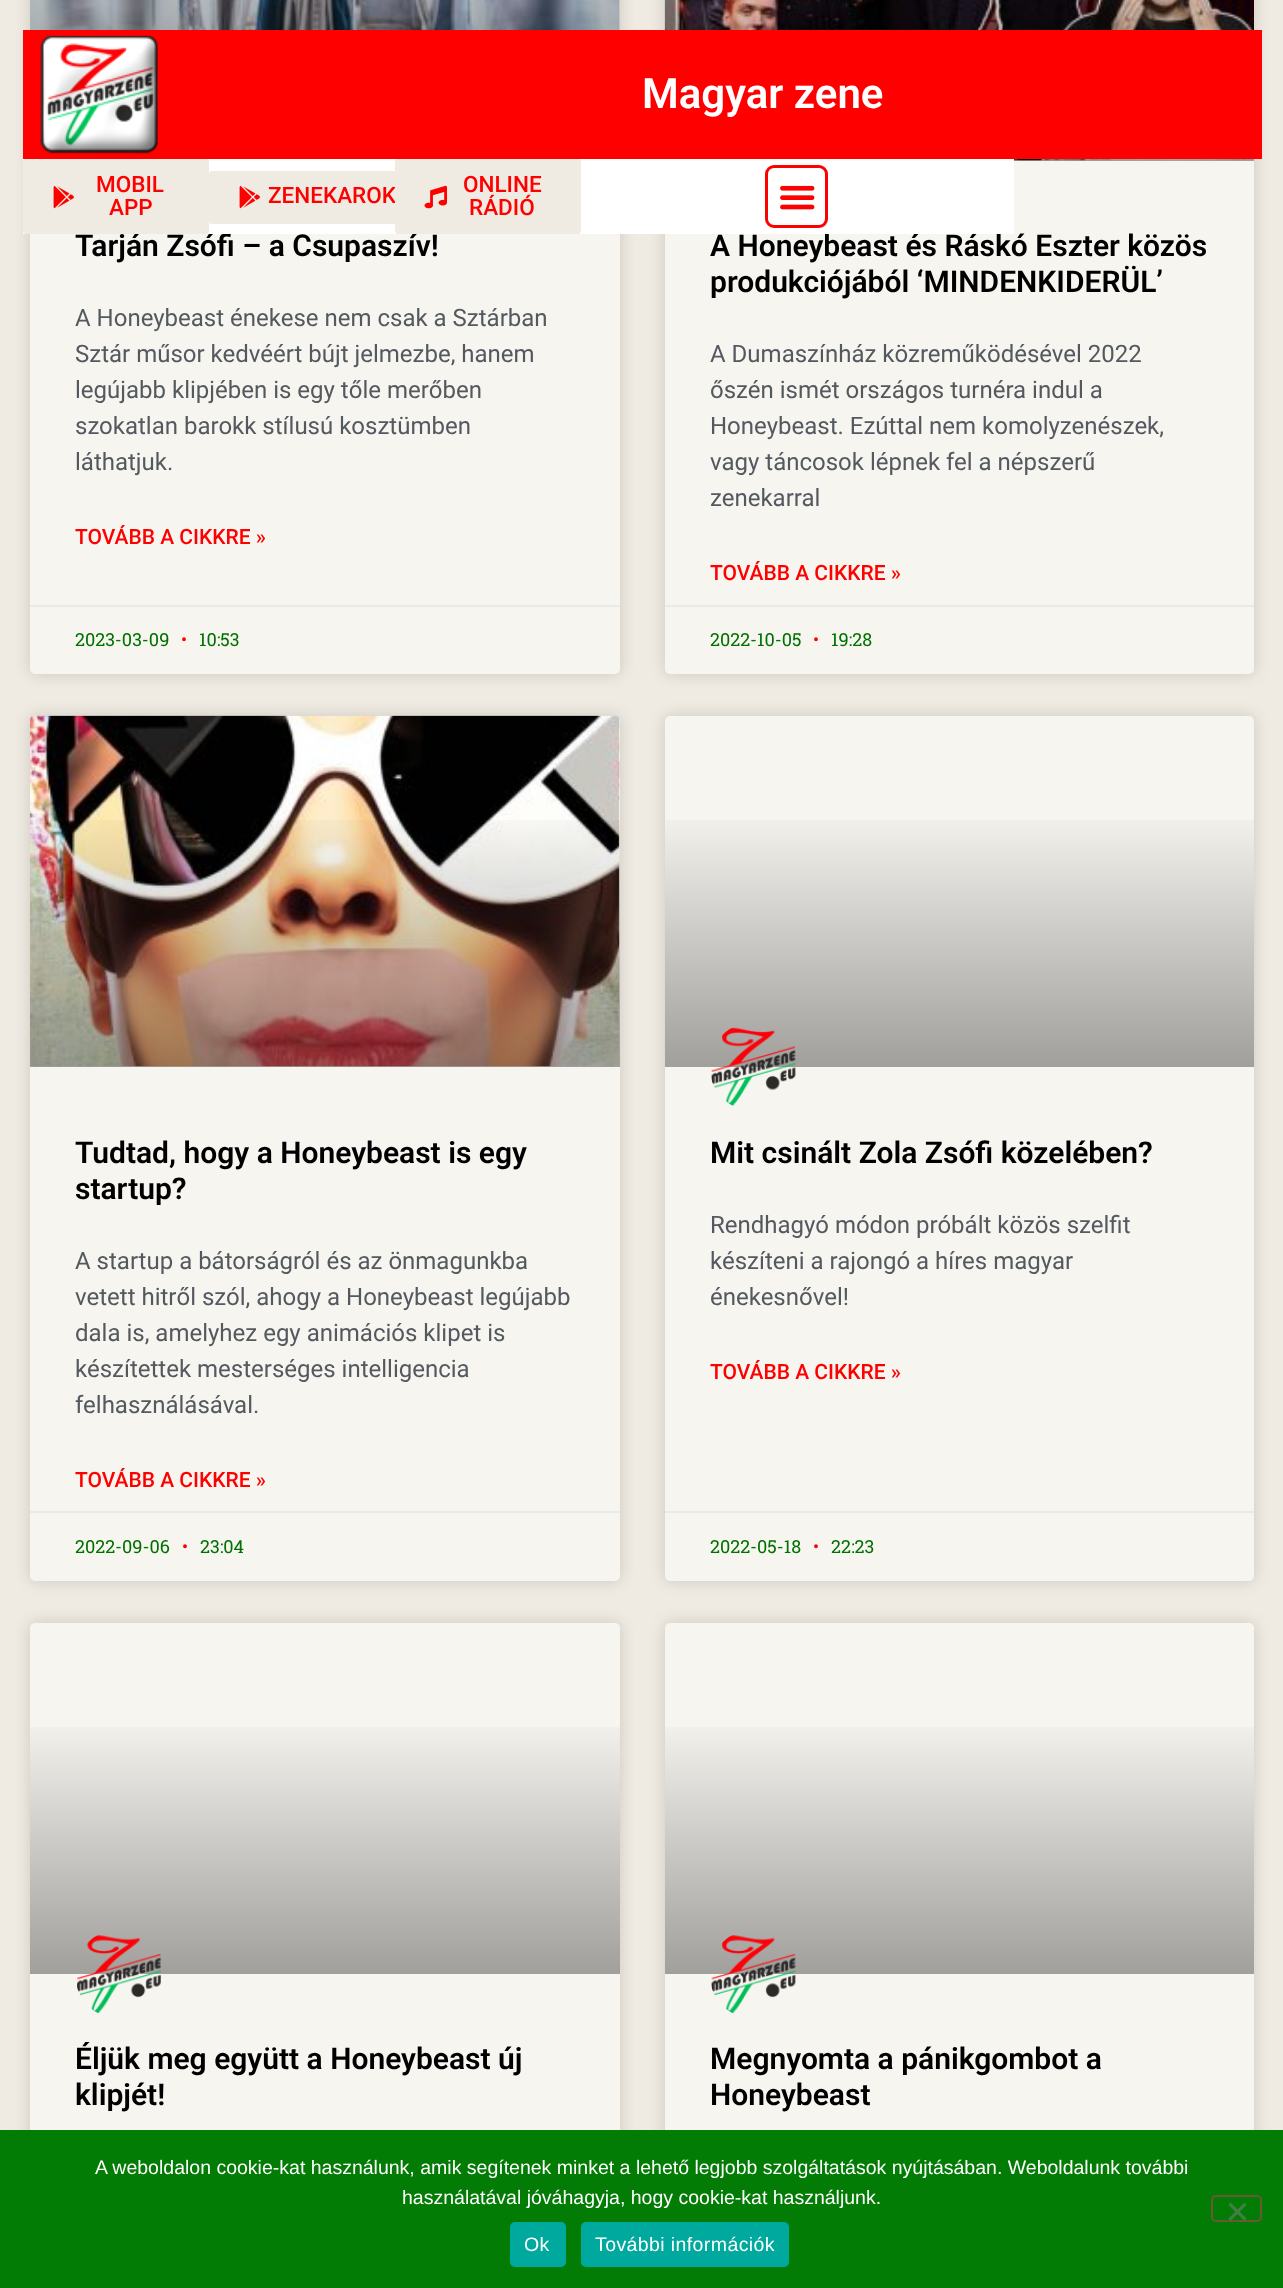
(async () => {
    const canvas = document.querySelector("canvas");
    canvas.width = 1283;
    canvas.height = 2288;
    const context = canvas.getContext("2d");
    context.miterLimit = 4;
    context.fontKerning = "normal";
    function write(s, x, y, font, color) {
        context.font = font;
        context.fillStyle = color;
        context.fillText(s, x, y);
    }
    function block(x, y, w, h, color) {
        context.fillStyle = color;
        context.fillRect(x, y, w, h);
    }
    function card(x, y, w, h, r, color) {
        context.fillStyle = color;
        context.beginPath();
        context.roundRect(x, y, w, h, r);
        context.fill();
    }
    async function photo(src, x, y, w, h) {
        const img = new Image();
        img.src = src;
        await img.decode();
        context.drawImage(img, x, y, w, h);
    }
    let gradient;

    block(0, 0, 1283, 2288, "rgb(239, 235, 226)");
    context.fillStyle = "rgba(0, 0, 0, 0.15)";
    context.filter = "blur(7.5px)";
    context.beginPath();
    context.roundRect(30, -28, 590, 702, 5);
    context.fill();
    context.filter = "none";
    card(30, -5, 590, 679, 5, "rgb(247, 245, 240)");
    context.fillStyle = "rgba(0, 0, 0, 0.15)";
    context.filter = "blur(7.5px)";
    context.beginPath();
    context.roundRect(665, -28, 589, 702, 5);
    context.fill();
    context.filter = "none";
    card(665, -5, 589, 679, 5, "rgb(247, 245, 240)");
    await photo("media/6.png", 664, 0, 590, 161);
    gradient = context.createLinearGradient(959, 161, 959, -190);
    gradient.addColorStop(0, "rgba(0, 0, 0, 0.35)");
    gradient.addColorStop(0.75, "rgba(0, 0, 0, 0)");
    context.fillStyle = gradient;
    context.fillRect(665, 0, 589, 161);
    block(23, 30, 1239, 129, "rgb(255, 0, 0)");
    await photo("media/1.png", 40, 35, 118, 119);
    write("Magyar zene", 642, 108, "600 42px Roboto", "rgb(255, 255, 255)");
    write("Tarján Zsófi – a Csupaszív!", 75, 256, "600 30px Roboto", "rgb(0, 0, 0)");
    block(23, 159, 372, 75, "rgb(255, 255, 255)");
    card(23, 159, 186, 75, 3, "rgb(239, 235, 226)");
    await photo("media/2.png", 53, 185, 21, 24);
    write("MOBIL", 96, 192, "500 22.5px Roboto", "rgb(255, 0, 0)");
    write("APP", 109, 215, "500 22.5px Roboto", "rgb(255, 0, 0)");
    card(209, 171, 217, 53, 3, "rgb(239, 235, 226)");
    await photo("media/2.png", 239, 185, 21, 24);
    write("ZENEKAROK", 268, 203, "500 22.5px Roboto", "rgb(255, 0, 0)");
    write("A Honeybeast és Ráskó Eszter közös", 710, 256, "600 30px Roboto", "rgb(0, 0, 0)");
    block(395, 159, 619, 75, "rgb(255, 255, 255)");
    card(395, 159, 186, 75, 3, "rgb(239, 235, 226)");
    await photo("media/3.png", 424, 185, 23, 24);
    write("ONLINE", 463, 192, "500 22.5px Roboto", "rgb(255, 0, 0)");
    write("RÁDIÓ", 469, 215, "500 22.5px Roboto", "rgb(255, 0, 0)");
    context.beginPath();
    context.roundRect(766.5, 166.5, 60, 60, 7.5);
    context.strokeStyle = "rgb(255, 0, 0)";
    context.lineWidth = 3;
    context.stroke();
    await photo("media/4.png", 780, 185, 35, 25);
    await photo("media/5.png", 30, 0, 590, 30);
    gradient = context.createLinearGradient(325, 161, 325, -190);
    gradient.addColorStop(0, "rgba(0, 0, 0, 0.35)");
    gradient.addColorStop(0.75, "rgba(0, 0, 0, 0)");
    context.fillStyle = gradient;
    context.fillRect(30, 0, 590, 30);
    write("A Honeybeast énekese nem csak a Sztárban", 75, 326, "24px Roboto", "rgb(84, 89, 95)");
    write("Sztár műsor kedvéért bújt jelmezbe, hanem", 75, 362, "24px Roboto", "rgb(84, 89, 95)");
    write("legújabb klipjében is egy tőle merőben", 75, 398, "24px Roboto", "rgb(84, 89, 95)");
    write("szokatlan barokk stílusú kosztümben", 75, 434, "24px Roboto", "rgb(84, 89, 95)");
    write("láthatjuk.", 75, 470, "24px Roboto", "rgb(84, 89, 95)");
    write("TOVÁBB A CIKKRE »", 75, 544, "500 21px Roboto", "rgb(255, 0, 0)");
    block(30, 605, 590, 2, "rgb(234, 234, 234)");
    write("2023-03-09", 75, 646, "18px Roboto Slab", "rgb(0, 113, 0)");
    write("•", 181, 646, "18px Roboto Slab", "rgb(255, 0, 0)");
    write("10:53", 199, 646, "18px Roboto Slab", "rgb(0, 113, 0)");
    write("produkciójából ‘MINDENKIDERÜL’", 710, 292, "600 30px Roboto", "rgb(0, 0, 0)");
    write("A Dumaszínház közreműködésével 2022", 710, 362, "24px Roboto", "rgb(84, 89, 95)");
    write("őszén ismét országos turnéra indul a", 710, 398, "24px Roboto", "rgb(84, 89, 95)");
    write("Honeybeast. Ezúttal nem komolyzenészek,", 710, 434, "24px Roboto", "rgb(84, 89, 95)");
    write("vagy táncosok lépnek fel a népszerű", 710, 470, "24px Roboto", "rgb(84, 89, 95)");
    write("zenekarral", 710, 506, "24px Roboto", "rgb(84, 89, 95)");
    write("TOVÁBB A CIKKRE »", 710, 580, "500 21px Roboto", "rgb(255, 0, 0)");
    block(665, 605, 589, 2, "rgb(234, 234, 234)");
    write("2022-10-05", 710, 646, "18px Roboto Slab", "rgb(0, 113, 0)");
    write("•", 813, 646, "18px Roboto Slab", "rgb(255, 0, 0)");
    write("19:28", 831, 646, "18px Roboto Slab", "rgb(0, 113, 0)");
    context.fillStyle = "rgba(0, 0, 0, 0.15)";
    context.filter = "blur(7.5px)";
    context.beginPath();
    context.roundRect(30, 716, 590, 865, 5);
    context.fill();
    context.filter = "none";
    card(30, 716, 590, 865, 5, "rgb(247, 245, 240)");
    await photo("media/7.png", 30, 715, 590, 352);
    gradient = context.createLinearGradient(325, 1067, 325, 716);
    gradient.addColorStop(0, "rgba(0, 0, 0, 0.35)");
    gradient.addColorStop(0.75, "rgba(0, 0, 0, 0)");
    context.fillStyle = gradient;
    context.fillRect(30, 820, 590, 247);
    write("Tudtad, hogy a Honeybeast is egy", 75, 1163, "600 30px Roboto", "rgb(0, 0, 0)");
    write("startup?", 75, 1199, "600 30px Roboto", "rgb(0, 0, 0)");
    write("A startup a bátorságról és az önmagunkba", 75, 1269, "24px Roboto", "rgb(84, 89, 95)");
    write("vetett hitről szól, ahogy a Honeybeast legújabb", 75, 1305, "24px Roboto", "rgb(84, 89, 95)");
    write("dala is, amelyhez egy animációs klipet is", 75, 1341, "24px Roboto", "rgb(84, 89, 95)");
    write("készítettek mesterséges intelligencia", 75, 1377, "24px Roboto", "rgb(84, 89, 95)");
    write("felhasználásával.", 75, 1413, "24px Roboto", "rgb(84, 89, 95)");
    write("TOVÁBB A CIKKRE »", 75, 1487, "500 21px Roboto", "rgb(255, 0, 0)");
    block(30, 1511, 590, 2, "rgb(234, 234, 234)");
    write("2022-09-06", 75, 1553, "18px Roboto Slab", "rgb(0, 113, 0)");
    write("•", 182, 1553, "18px Roboto Slab", "rgb(255, 0, 0)");
    write("23:04", 200, 1553, "18px Roboto Slab", "rgb(0, 113, 0)");
    context.fillStyle = "rgba(0, 0, 0, 0.15)";
    context.filter = "blur(7.5px)";
    context.beginPath();
    context.roundRect(665, 716, 589, 865, 5);
    context.fill();
    context.filter = "none";
    card(665, 716, 589, 865, 5, "rgb(247, 245, 240)");
    gradient = context.createLinearGradient(959, 1067, 959, 716);
    gradient.addColorStop(0, "rgba(0, 0, 0, 0.35)");
    gradient.addColorStop(0.75, "rgba(0, 0, 0, 0)");
    context.fillStyle = gradient;
    context.fillRect(665, 820, 589, 247);
    await photo("media/8.png", 711, 1027, 85, 79);
    write("Mit csinált Zola Zsófi közelében?", 710, 1163, "600 30px Roboto", "rgb(0, 0, 0)");
    write("Rendhagyó módon próbált közös szelfit", 710, 1233, "24px Roboto", "rgb(84, 89, 95)");
    write("készíteni a rajongó a híres magyar", 710, 1269, "24px Roboto", "rgb(84, 89, 95)");
    write("énekesnővel!", 710, 1305, "24px Roboto", "rgb(84, 89, 95)");
    write("TOVÁBB A CIKKRE »", 710, 1379, "500 21px Roboto", "rgb(255, 0, 0)");
    block(665, 1511, 589, 2, "rgb(234, 234, 234)");
    write("2022-05-18", 710, 1553, "18px Roboto Slab", "rgb(0, 113, 0)");
    write("•", 813, 1553, "18px Roboto Slab", "rgb(255, 0, 0)");
    write("22:23", 831, 1553, "18px Roboto Slab", "rgb(0, 113, 0)");
    context.fillStyle = "rgba(0, 0, 0, 0.15)";
    context.filter = "blur(7.5px)";
    context.beginPath();
    context.roundRect(30, 1623, 590, 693, 5);
    context.fill();
    context.filter = "none";
    card(30, 1623, 590, 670, 5, "rgb(247, 245, 240)");
    gradient = context.createLinearGradient(325, 1974, 325, 1623);
    gradient.addColorStop(0, "rgba(0, 0, 0, 0.35)");
    gradient.addColorStop(0.75, "rgba(0, 0, 0, 0)");
    context.fillStyle = gradient;
    context.fillRect(30, 1727, 590, 247);
    await photo("media/9.png", 77, 1935, 84, 79);
    write("Éljük meg együtt a Honeybeast új", 75, 2069, "600 30px Roboto", "rgb(0, 0, 0)");
    write("klipjét!", 75, 2105, "600 30px Roboto", "rgb(0, 0, 0)");
    context.fillStyle = "rgba(0, 0, 0, 0.15)";
    context.filter = "blur(7.5px)";
    context.beginPath();
    context.roundRect(665, 1623, 589, 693, 5);
    context.fill();
    context.filter = "none";
    card(665, 1623, 589, 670, 5, "rgb(247, 245, 240)");
    gradient = context.createLinearGradient(959, 1974, 959, 1623);
    gradient.addColorStop(0, "rgba(0, 0, 0, 0.35)");
    gradient.addColorStop(0.75, "rgba(0, 0, 0, 0)");
    context.fillStyle = gradient;
    context.fillRect(665, 1727, 589, 247);
    await photo("media/10.png", 711, 1935, 85, 79);
    write("Megnyomta a pánikgombot a", 710, 2069, "600 30px Roboto", "rgb(0, 0, 0)");
    write("Honeybeast", 710, 2105, "600 30px Roboto", "rgb(0, 0, 0)");
    block(0, 2130, 1283, 158, "rgb(3, 124, 5)");
    write("A weboldalon cookie-kat használunk, amik segítenek minket a lehető legjobb szolgáltatások nyújtásában. Weboldalunk további", 95, 2174, "19.5px Liberation Sans", "rgb(255, 255, 255)");
    write("használatával jóváhagyja, hogy cookie-kat használjunk.", 402, 2204, "19.5px Liberation Sans", "rgb(255, 255, 255)");
    context.beginPath();
    context.roundRect(1212, 2196, 49, 25, 4);
    context.strokeStyle = "rgb(104, 88, 54)";
    context.lineWidth = 2;
    context.stroke();
    context.fillStyle = "rgb(66, 126, 67)";
    context.beginPath();
    context.moveTo(1244.5, 2202.5);
    context.lineTo(1246.5, 2205);
    context.lineTo(1230.5, 2221);
    context.lineTo(1228.5, 2218.5);
    context.closePath();
    context.fill();
    context.beginPath();
    context.moveTo(1228.5, 2205);
    context.lineTo(1230.5, 2202.5);
    context.lineTo(1246.5, 2218.5);
    context.lineTo(1244.5, 2221);
    context.closePath();
    context.fill();
    card(510, 2222, 56, 45, 5, "rgb(0, 169, 157)");
    context.letterSpacing = "0.4px";
    write("Ok", 524, 2251, "19.5px Liberation Sans", "rgb(255, 255, 255)");
    card(581, 2222, 208, 45, 5, "rgb(0, 169, 157)");
    write("További információk", 595, 2251, "19.5px Liberation Sans", "rgb(255, 255, 255)");
})();
